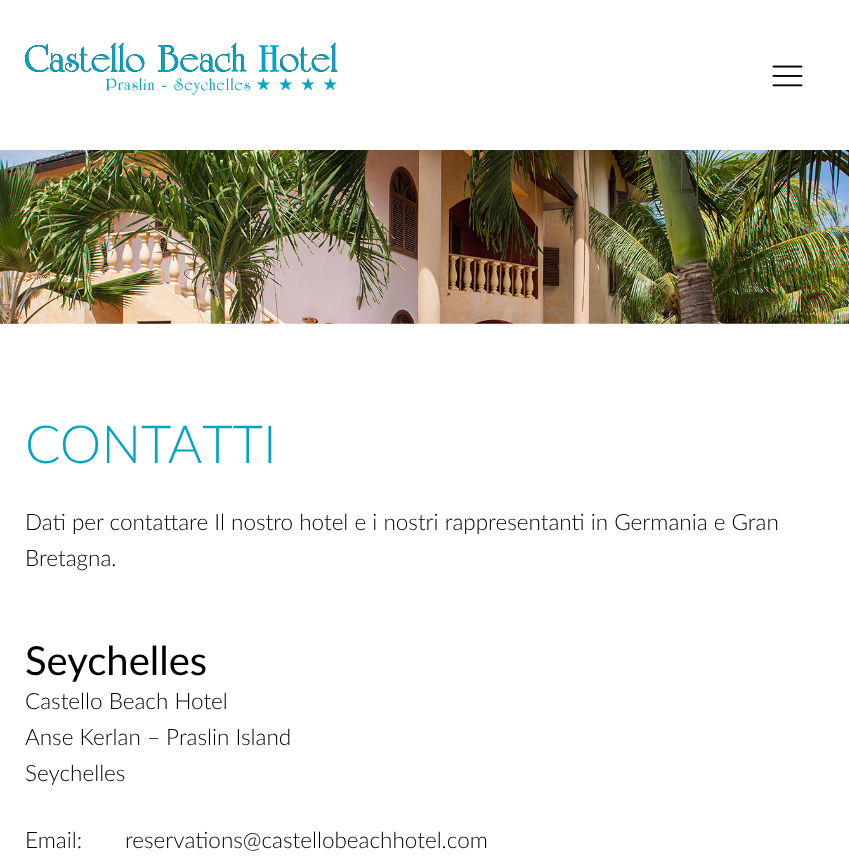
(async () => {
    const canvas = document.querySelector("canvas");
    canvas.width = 849;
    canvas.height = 868;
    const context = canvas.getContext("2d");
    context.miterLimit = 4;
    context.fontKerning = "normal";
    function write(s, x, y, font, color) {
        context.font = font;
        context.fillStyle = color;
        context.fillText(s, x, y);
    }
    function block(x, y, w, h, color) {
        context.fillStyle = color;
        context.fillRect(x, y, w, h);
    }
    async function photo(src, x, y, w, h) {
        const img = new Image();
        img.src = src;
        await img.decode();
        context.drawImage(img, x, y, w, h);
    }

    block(0, 0, 849, 868, "rgb(255, 255, 255)");
    await photo("media/1.png", 25, 43, 313, 52);
    await photo("media/2.png", 772, 65, 31, 22);
    await photo("media/3.png", 0, 150, 849, 174);
    write("CONTATTI", 25, 463, "300 52.5px Lato", "rgb(0, 165, 198)");
    write("Dati per contattare Il nostro hotel e i nostri rappresentanti in Germania e Gran", 25, 530, "300 22.5px Lato", "rgb(0, 0, 0)");
    write("Bretagna.", 25, 566, "300 22.5px Lato", "rgb(0, 0, 0)");
    write("Seychelles", 25, 675, "40px Lato", "rgb(0, 0, 0)");
    write("Castello Beach Hotel", 25, 709, "300 22.5px Lato", "rgb(0, 0, 0)");
    write("Anse Kerlan – Praslin Island", 25, 745, "300 22.5px Lato", "rgb(0, 0, 0)");
    write("Seychelles", 25, 781, "300 22.5px Lato", "rgb(0, 0, 0)");
    write("Email:", 25, 848, "300 22.5px Lato", "rgb(0, 0, 0)");
    write("reservations@castellobeachhotel.com", 125, 848, "300 22.5px Lato", "rgb(0, 0, 0)");
})();
